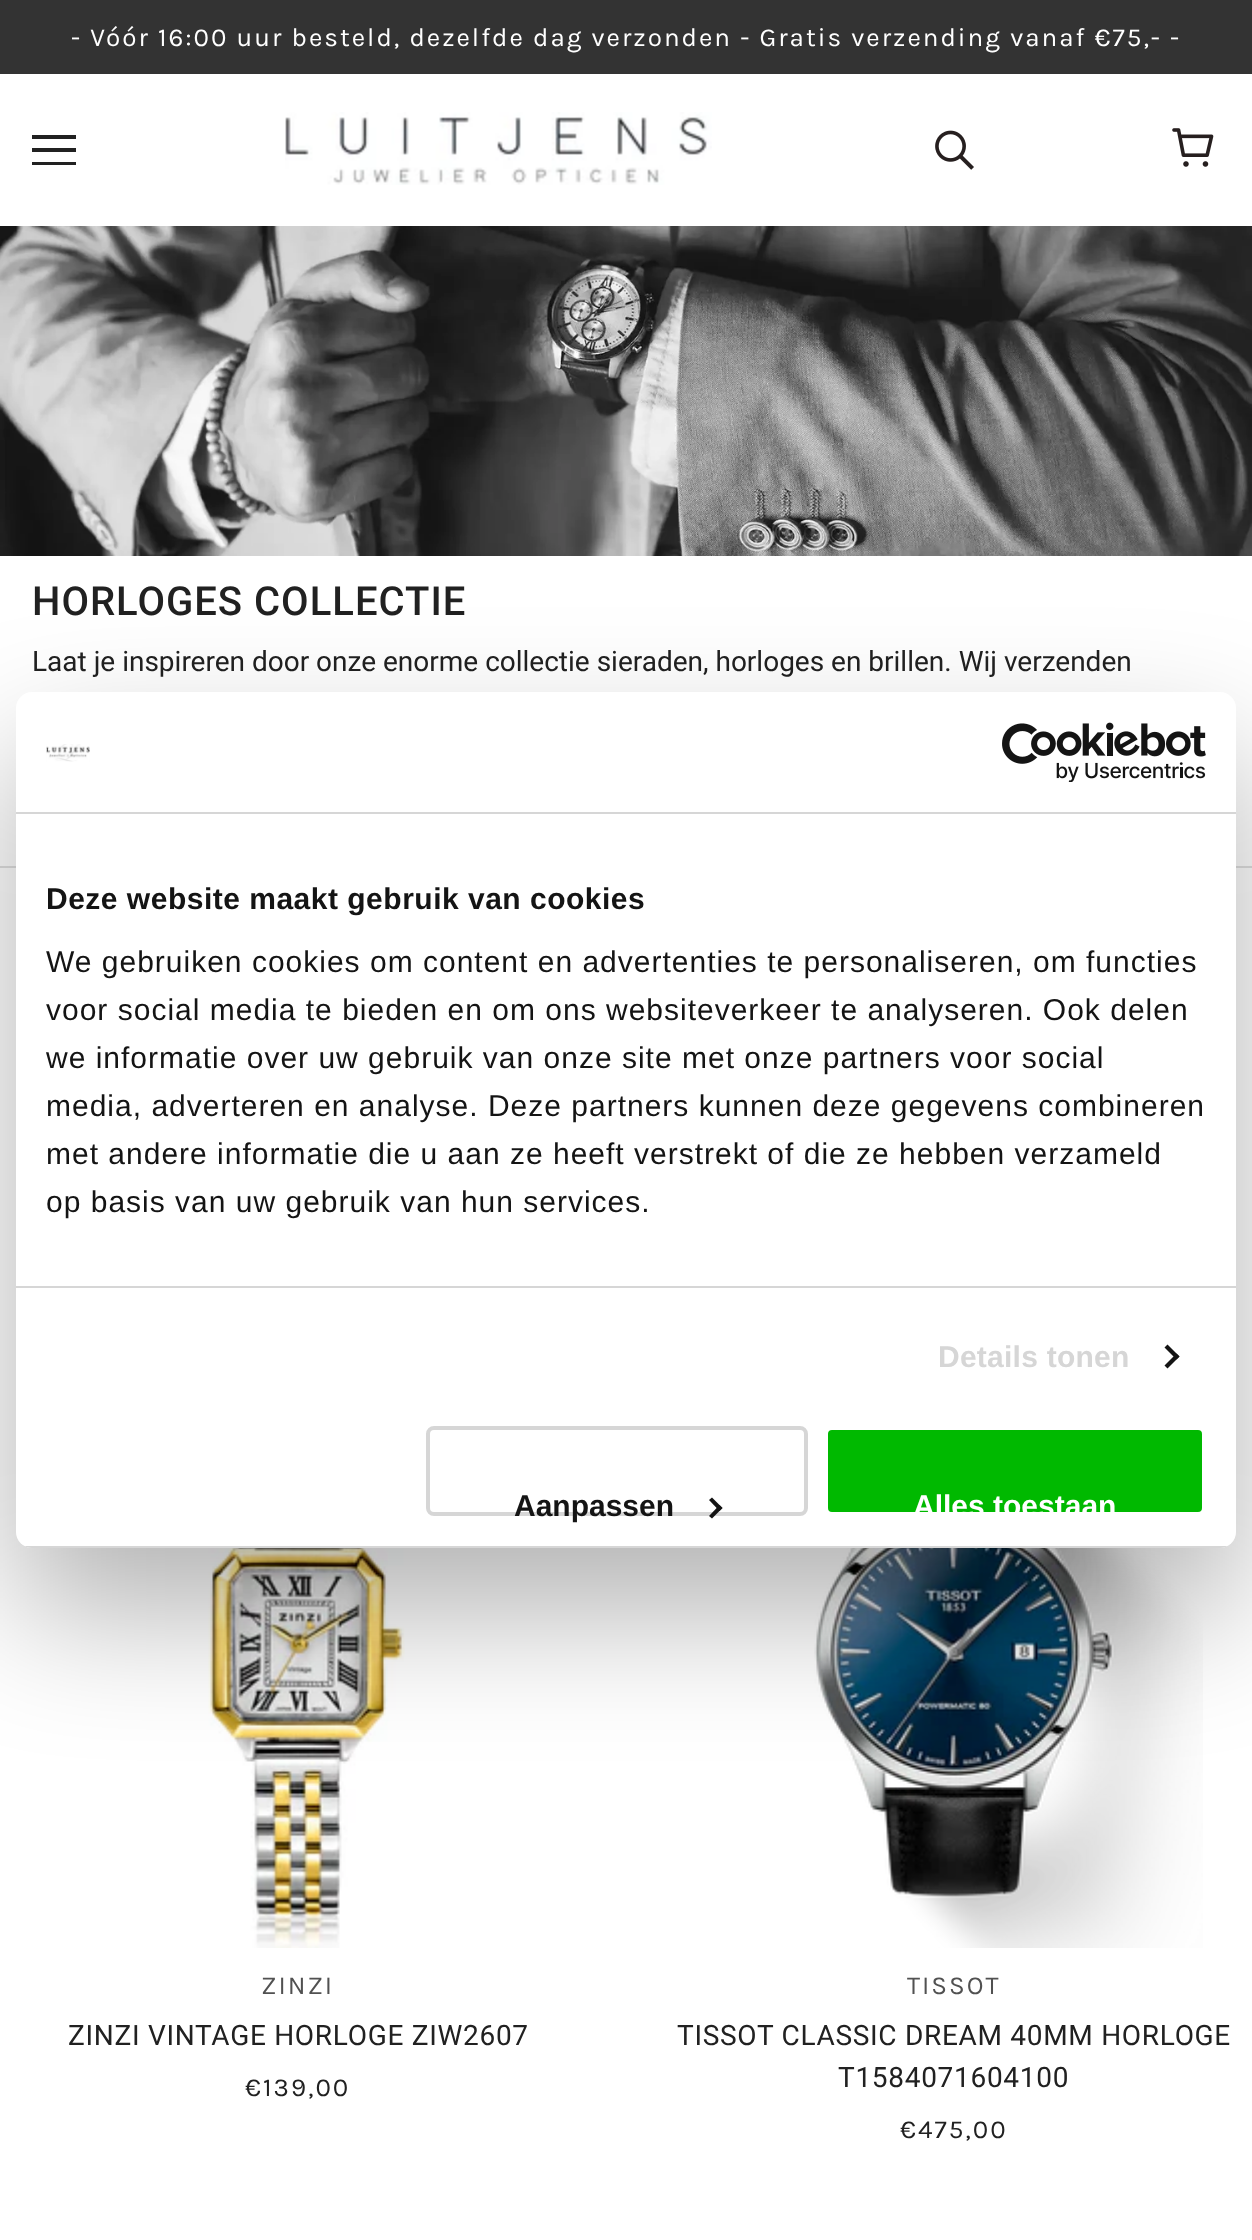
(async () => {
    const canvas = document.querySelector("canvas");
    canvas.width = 1252;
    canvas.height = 2240;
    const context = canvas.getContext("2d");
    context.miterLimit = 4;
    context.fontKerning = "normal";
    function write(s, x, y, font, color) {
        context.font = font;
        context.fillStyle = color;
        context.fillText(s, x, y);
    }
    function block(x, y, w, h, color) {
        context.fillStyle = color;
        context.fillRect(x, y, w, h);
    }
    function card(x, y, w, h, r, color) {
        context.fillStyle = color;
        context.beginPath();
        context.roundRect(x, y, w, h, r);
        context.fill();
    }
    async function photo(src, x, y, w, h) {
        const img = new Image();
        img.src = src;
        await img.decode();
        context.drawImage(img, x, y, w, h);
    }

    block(0, 0, 1252, 2240, "rgb(255, 255, 255)");
    block(0, 0, 1252, 74, "rgb(51, 51, 51)");
    context.letterSpacing = "2px";
    write("- Vóór 16:00 uur besteld, dezelfde dag verzonden - Gratis verzending vanaf €75,- -", 71, 46, "26px Karla", "rgb(255, 255, 255)");
    context.fillStyle = "rgb(33, 33, 33)";
    context.beginPath();
    context.moveTo(32, 139);
    context.lineTo(32, 135);
    context.lineTo(76, 135);
    context.lineTo(76, 139);
    context.closePath();
    context.moveTo(32, 152);
    context.lineTo(32, 148);
    context.lineTo(76, 148);
    context.lineTo(76, 152);
    context.closePath();
    context.moveTo(32, 165);
    context.lineTo(32, 162);
    context.lineTo(76, 162);
    context.lineTo(76, 165);
    context.closePath();
    context.fill();
    await photo("media/1.png", 285, 112, 427, 73);
    await photo("media/2.png", 935, 130, 39, 40);
    await photo("media/3.png", 1172, 128, 42, 39);
    block(0, 866, 1252, 2, "rgb(224, 224, 224)");
    await photo("media/4.png", 0, 226, 1252, 330);
    context.letterSpacing = "1px";
    write("HORLOGES COLLECTIE", 32, 615, "500 40px Roboto", "rgb(33, 33, 33)");
    context.letterSpacing = "0px";
    write("Laat je inspireren door onze enorme collectie sieraden, horloges en brillen. Wij verzenden", 32, 671, "28px Roboto", "rgb(33, 33, 33)");
    await photo("media/5.png", 208, 1548, 197, 400);
    context.letterSpacing = "2px";
    write("ZINZI", 261, 1994, "26px Karla", "rgb(81, 81, 81)");
    context.letterSpacing = "0.7px";
    write("ZINZI VINTAGE HORLOGE ZIW2607", 68, 2045, "28px Roboto", "rgb(33, 33, 33)");
    context.letterSpacing = "2px";
    write("€139,00", 245, 2096, "26px Karla", "rgb(33, 33, 33)");
    await photo("media/6.png", 814, 1548, 389, 400);
    write("TISSOT", 907, 1994, "26px Karla", "rgb(81, 81, 81)");
    context.letterSpacing = "0.7px";
    write("TISSOT CLASSIC DREAM 40MM HORLOGE", 677, 2045, "28px Roboto", "rgb(33, 33, 33)");
    write("T1584071604100", 838, 2087, "28px Roboto", "rgb(33, 33, 33)");
    context.letterSpacing = "2px";
    write("€475,00", 900, 2138, "26px Karla", "rgb(33, 33, 33)");
    context.fillStyle = "rgba(0, 0, 0, 0.3)";
    context.filter = "blur(68px)";
    context.beginPath();
    context.roundRect(16, 756, 1220, 856, 16);
    context.fill();
    context.filter = "none";
    card(16, 692, 1220, 856, 16, "rgb(255, 255, 255)");
    block(16, 812, 1220, 2, "rgb(214, 214, 214)");
    await photo("media/7.png", 46, 744, 44, 18);
    await photo("media/8.png", 1002, 722, 204, 60);
    block(16, 1286, 1220, 2, "rgb(214, 214, 214)");
    context.letterSpacing = "0.5px";
    write("Deze website maakt gebruik van cookies", 46, 909, "bold 30px Liberation Sans", "rgb(20, 20, 20)");
    context.letterSpacing = "1px";
    write("We gebruiken cookies om content en advertenties te personaliseren, om functies", 46, 972, "30px Liberation Sans", "rgb(20, 20, 20)");
    write("voor social media te bieden en om ons websiteverkeer te analyseren. Ook delen", 46, 1020, "30px Liberation Sans", "rgb(20, 20, 20)");
    write("we informatie over uw gebruik van onze site met onze partners voor social", 46, 1068, "30px Liberation Sans", "rgb(20, 20, 20)");
    write("media, adverteren en analyse. Deze partners kunnen deze gegevens combineren", 46, 1116, "30px Liberation Sans", "rgb(20, 20, 20)");
    write("met andere informatie die u aan ze heeft verstrekt of die ze hebben verzameld", 46, 1164, "30px Liberation Sans", "rgb(20, 20, 20)");
    write("op basis van uw gebruik van hun services.", 46, 1212, "30px Liberation Sans", "rgb(20, 20, 20)");
    context.letterSpacing = "0.25px";
    write("Details tonen", 938, 1367, "bold 30px Liberation Sans", "rgb(214, 214, 214)");
    context.fillStyle = "rgb(20, 20, 20)";
    context.beginPath();
    context.moveTo(1167.5, 1344.5);
    context.lineTo(1179.5, 1356.5);
    context.lineTo(1176.5, 1359.5);
    context.lineTo(1164.5, 1347.5);
    context.closePath();
    context.fill();
    context.beginPath();
    context.moveTo(1176.5, 1353.5);
    context.lineTo(1179.5, 1356.5);
    context.lineTo(1167.5, 1368.5);
    context.lineTo(1164.5, 1365.5);
    context.closePath();
    context.fill();
    context.save();
    context.beginPath();
    context.roundRect(16, 692, 1220, 856, 16);
    context.clip();
    block(16, 1546, 1220, 2, "rgb(214, 214, 214)");
    context.restore();
    context.beginPath();
    context.roundRect(428, 1428, 378, 86, 6);
    context.strokeStyle = "rgb(214, 214, 214)";
    context.lineWidth = 4;
    context.stroke();
    context.letterSpacing = "0px";
    write("Aanpassen", 514, 1516, "bold 30px Liberation Sans", "rgb(20, 20, 20)");
    context.beginPath();
    context.moveTo(712, 1497.5);
    context.lineTo(722.5, 1508);
    context.lineTo(719.5, 1511);
    context.lineTo(709, 1500);
    context.closePath();
    context.fill();
    context.beginPath();
    context.moveTo(719.5, 1505);
    context.lineTo(722.5, 1508);
    context.lineTo(712, 1518.5);
    context.lineTo(709, 1516);
    context.closePath();
    context.fill();
    context.fillStyle = "rgb(0, 185, 0)";
    context.beginPath();
    context.roundRect(826, 1428, 378, 86, 6);
    context.fill();
    context.strokeStyle = "rgb(255, 255, 255)";
    context.stroke();
    write("Alles toestaan", 913, 1516, "bold 30px Liberation Sans", "rgb(255, 255, 255)");
})();
